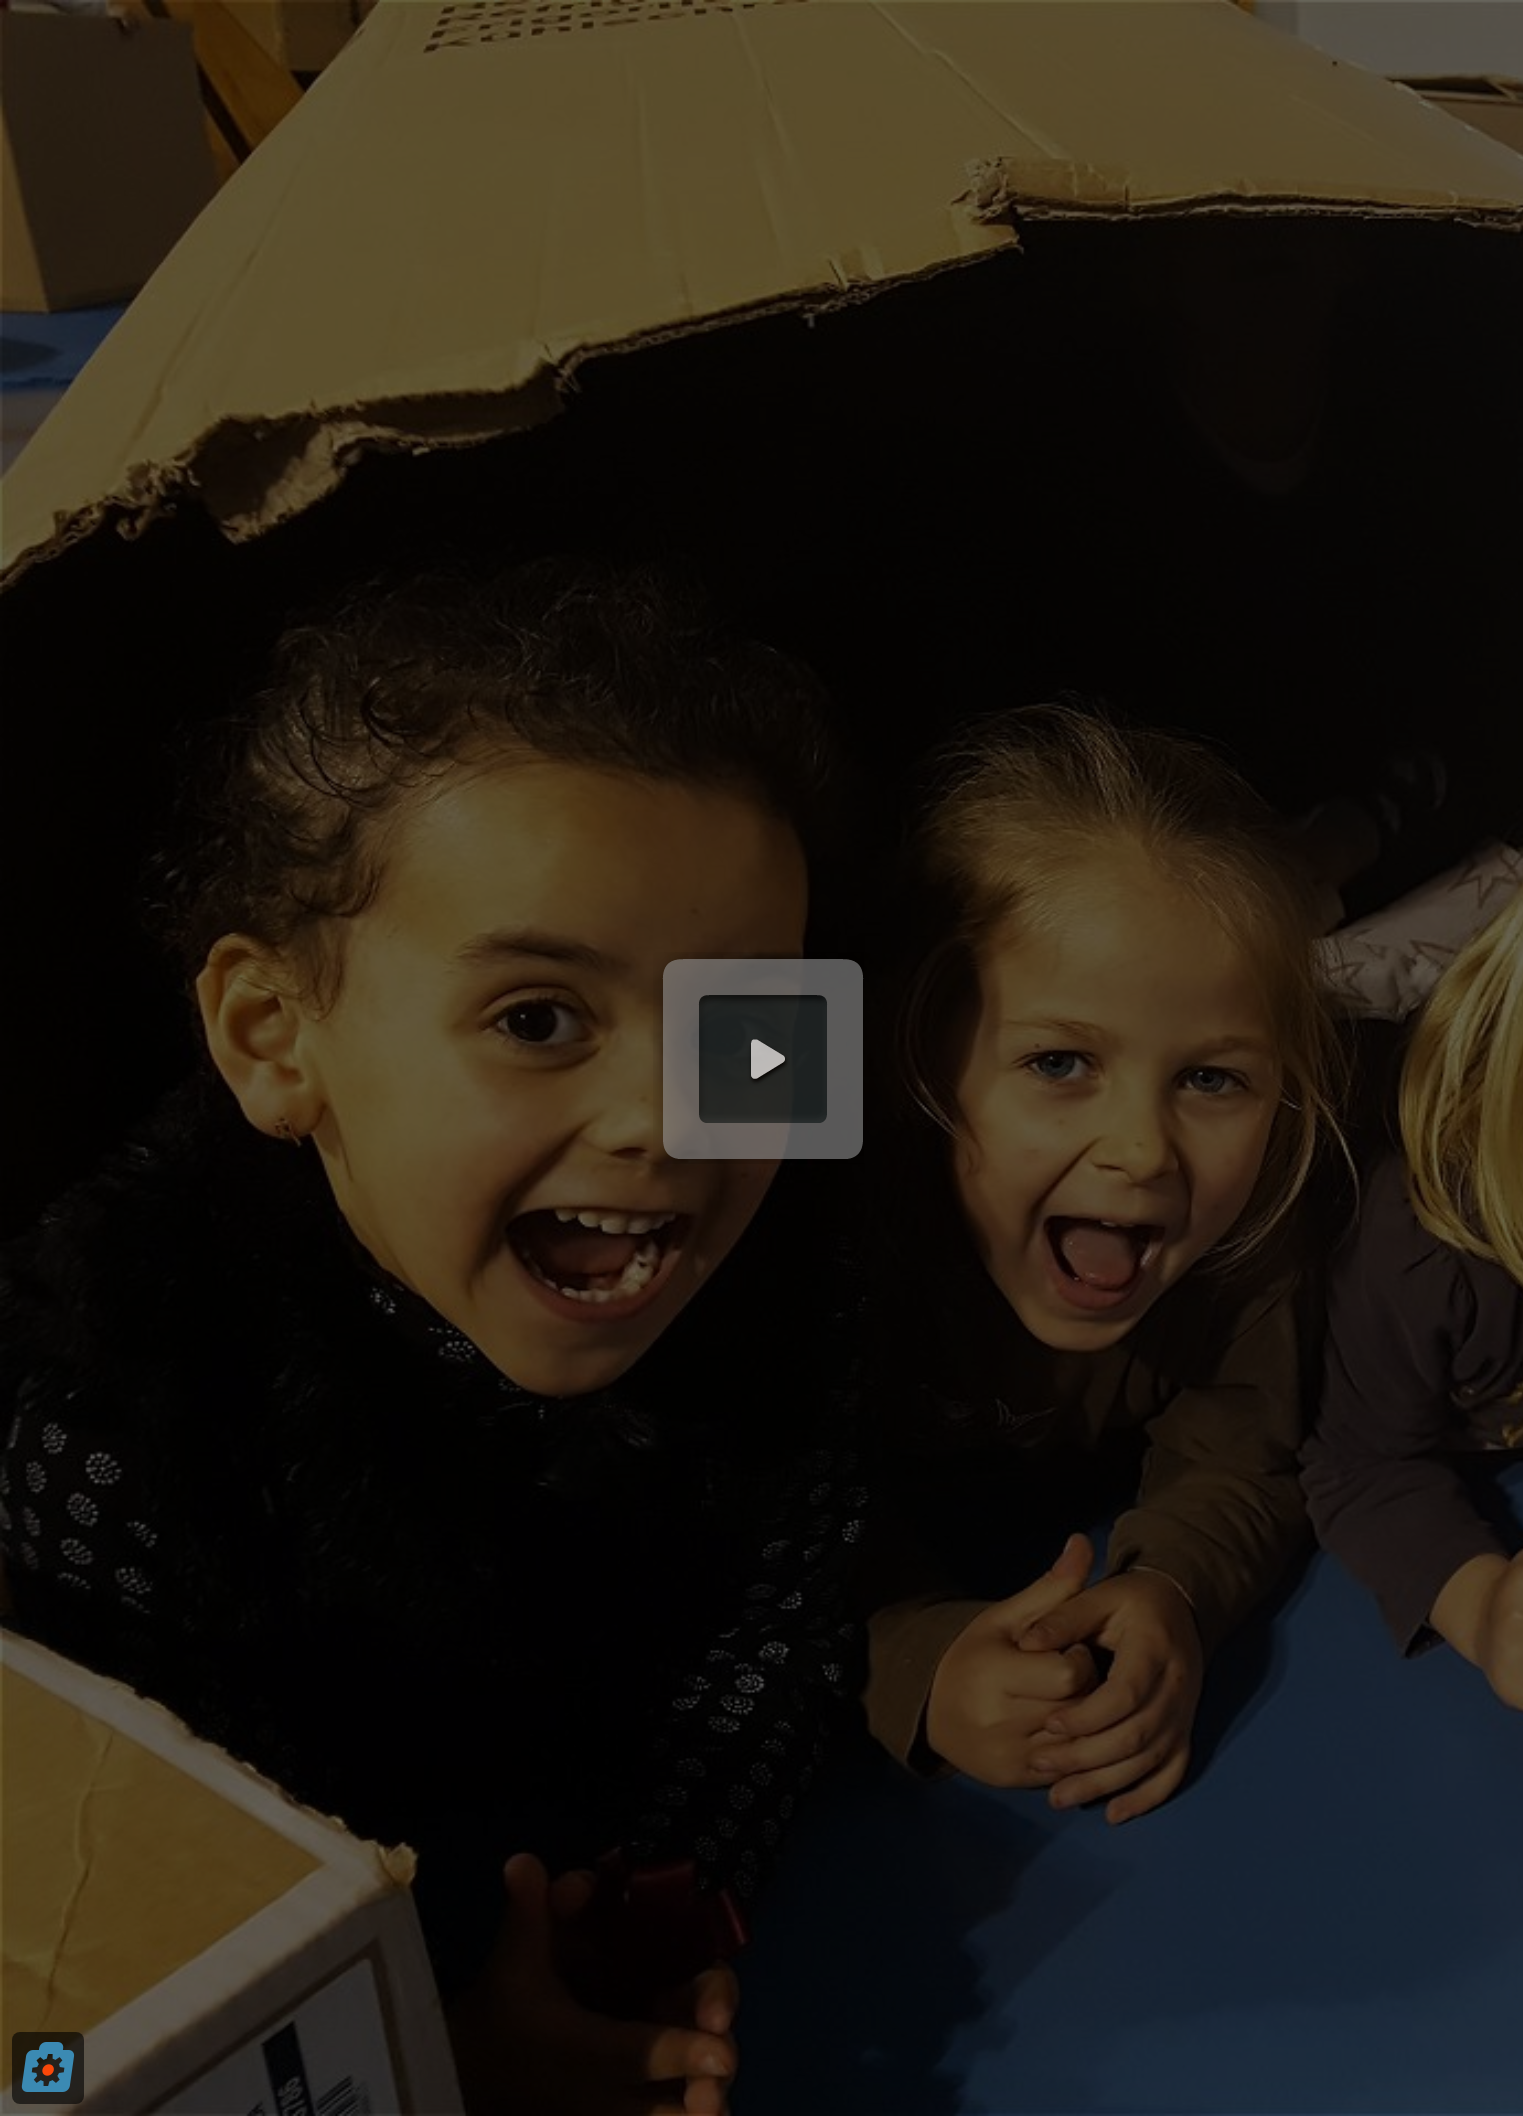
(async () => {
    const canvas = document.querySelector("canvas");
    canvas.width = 1523;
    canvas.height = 2116;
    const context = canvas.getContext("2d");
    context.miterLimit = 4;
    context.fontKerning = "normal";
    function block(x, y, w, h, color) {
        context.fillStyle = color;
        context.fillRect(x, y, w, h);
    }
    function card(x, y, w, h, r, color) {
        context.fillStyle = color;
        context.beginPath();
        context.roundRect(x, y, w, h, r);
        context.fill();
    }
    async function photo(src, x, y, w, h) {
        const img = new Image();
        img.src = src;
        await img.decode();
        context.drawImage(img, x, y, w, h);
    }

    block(0, 0, 1523, 2116, "rgb(255, 255, 255)");
    await photo("media/1.png", 0, 0, 1523, 2116);
    await photo("media/2.png", 653, 952, 211, 212);
    card(12, 2032, 72, 72, 8, "rgba(0, 0, 0, 0.6)");
    await photo("media/3.png", 21, 2042, 54, 50);
})();
